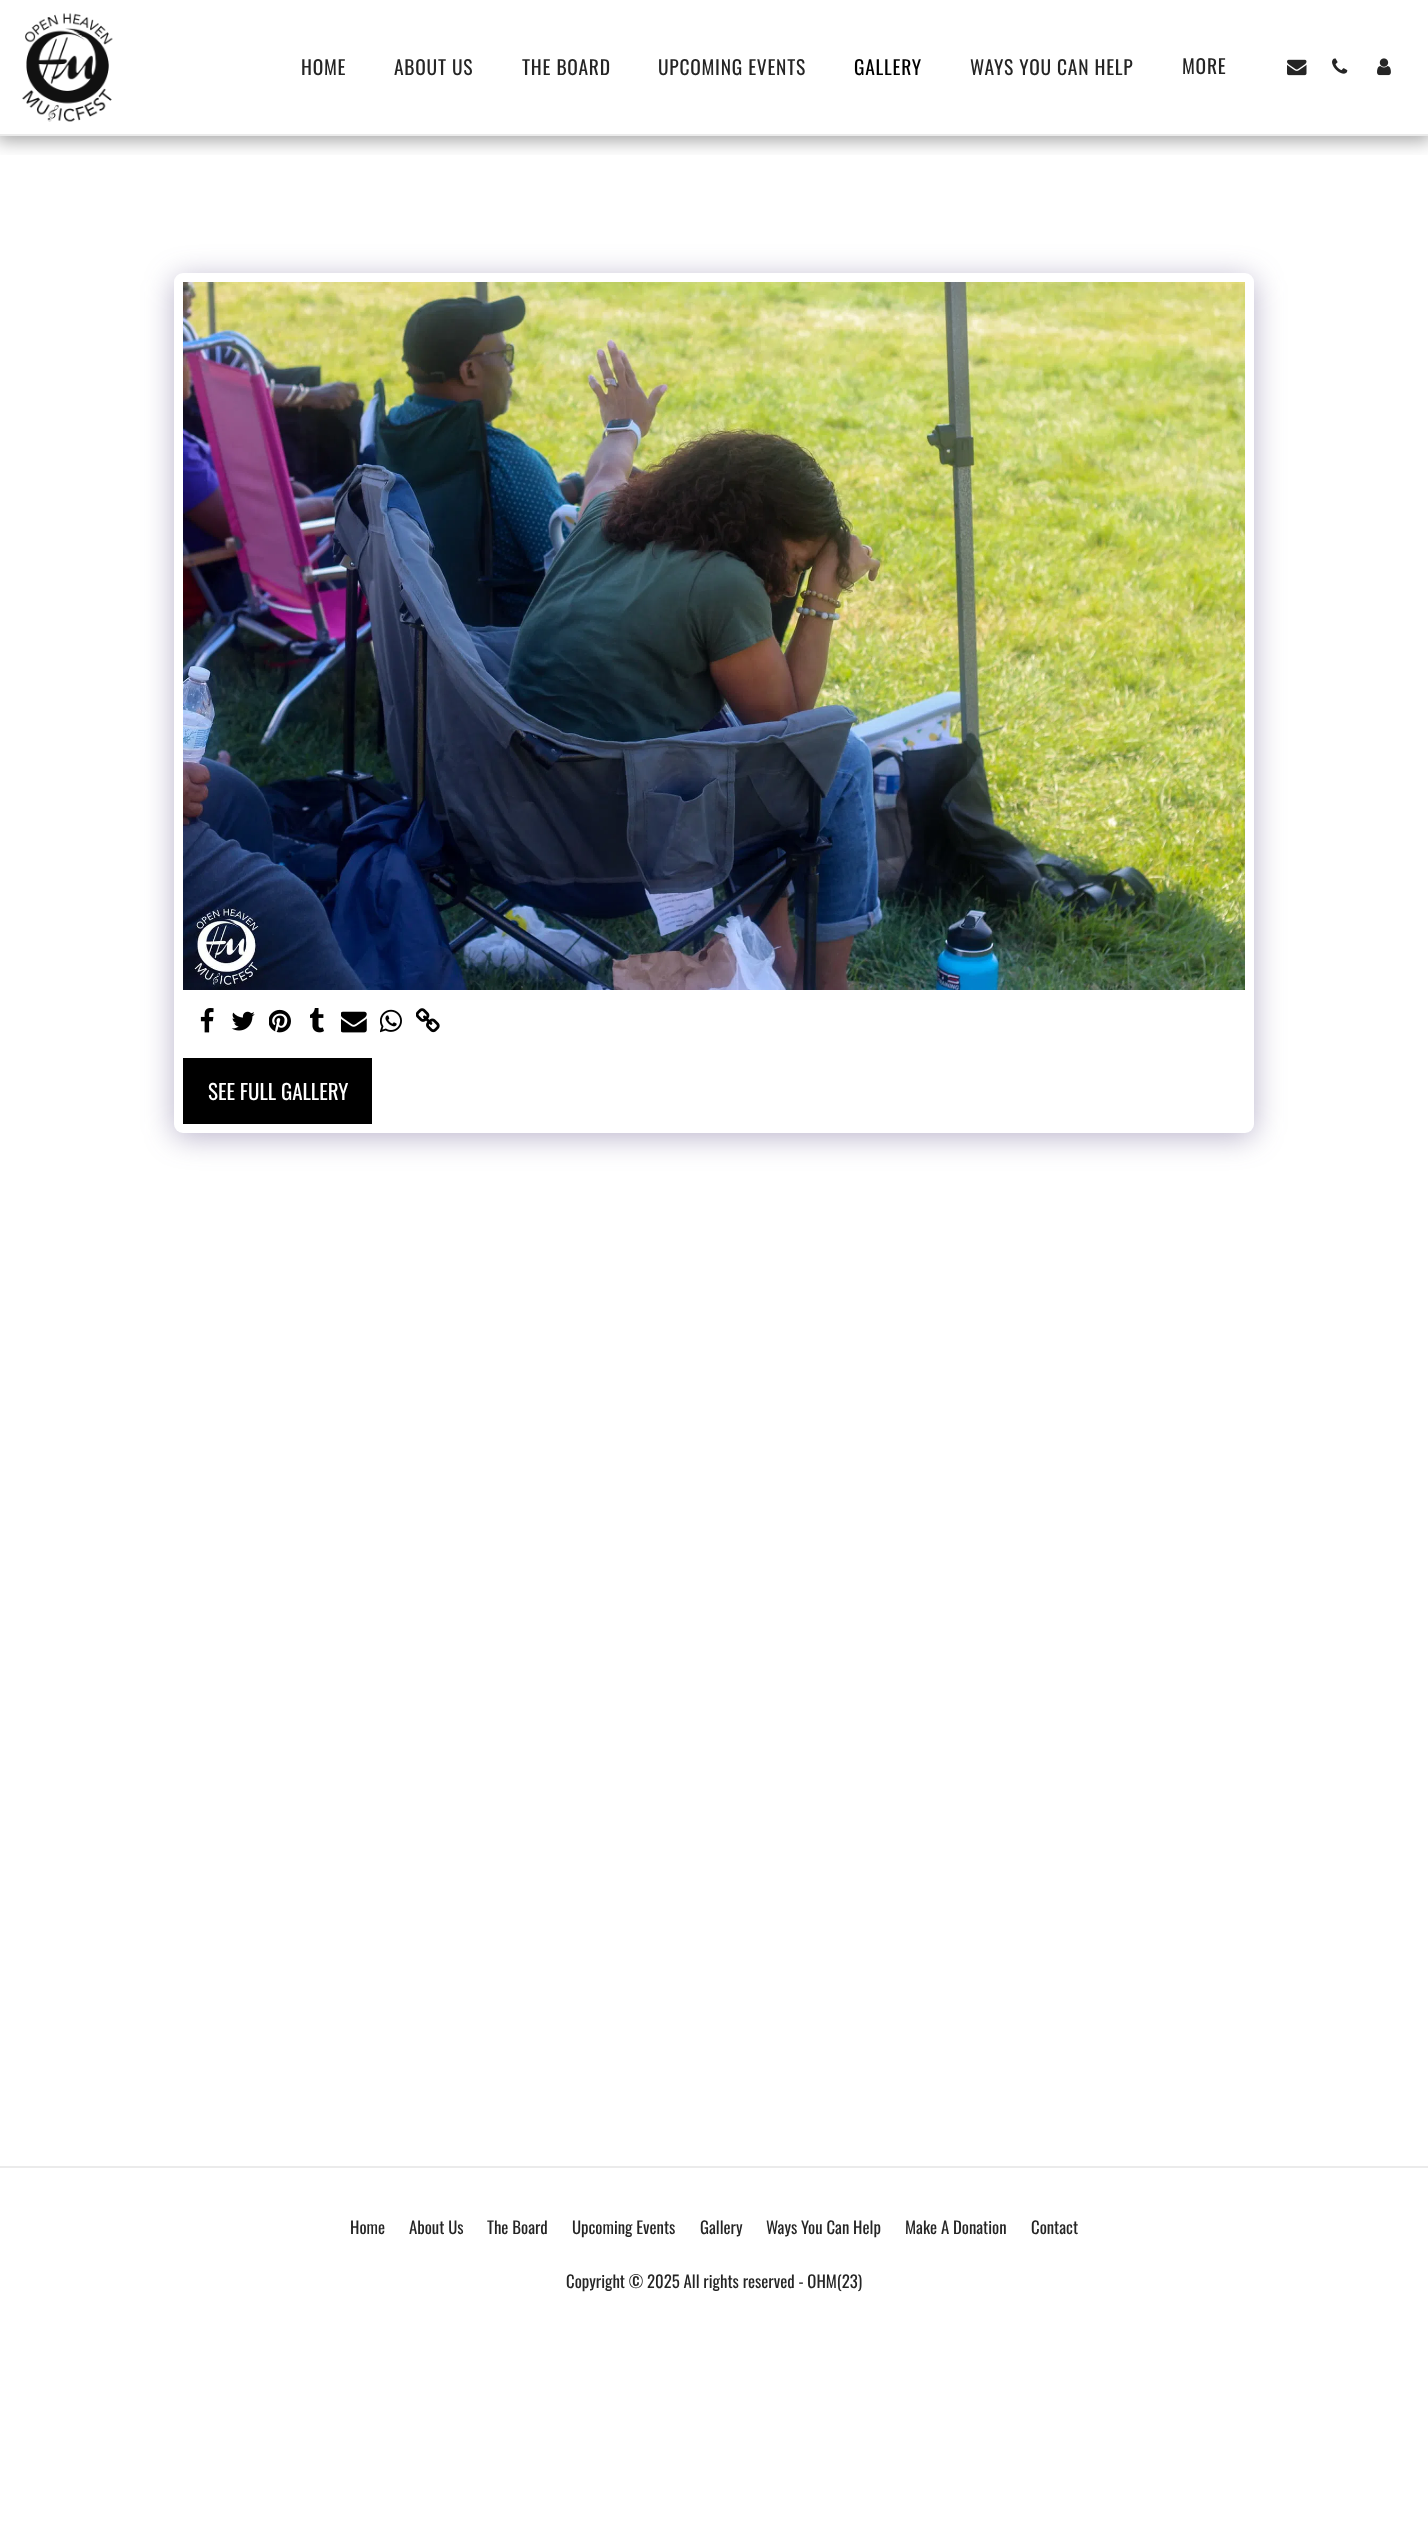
(async () => {
    const canvas = document.querySelector("canvas");
    canvas.width = 1428;
    canvas.height = 2538;
    const context = canvas.getContext("2d");
    context.miterLimit = 4;
    context.fontKerning = "normal";
    function write(s, x, y, font, color) {
        context.font = font;
        context.fillStyle = color;
        context.fillText(s, x, y);
    }
    function block(x, y, w, h, color) {
        context.fillStyle = color;
        context.fillRect(x, y, w, h);
    }
    function card(x, y, w, h, r, color) {
        context.fillStyle = color;
        context.beginPath();
        context.roundRect(x, y, w, h, r);
        context.fill();
    }
    async function photo(src, x, y, w, h) {
        const img = new Image();
        img.src = src;
        await img.decode();
        context.drawImage(img, x, y, w, h);
    }

    block(0, 0, 1428, 2538, "rgb(255, 255, 255)");
    context.save();
    context.beginPath();
    context.rect(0, 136, 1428, 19);
    context.clip();
    context.fillStyle = "rgba(0, 0, 0, 0.35)";
    context.filter = "blur(9px)";
    context.beginPath();
    context.rect(-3, 0, 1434, 141);
    context.fill();
    context.filter = "none";
    context.restore();
    block(0, 134, 1428, 2, "rgb(235, 235, 235)");
    await photo("media/1.png", 22, 13, 91, 109);
    context.letterSpacing = "0.75px";
    write("HOME", 301, 75, "19.5px Oswald", "rgb(37, 37, 37)");
    write("ABOUT US", 394, 75, "19.5px Oswald", "rgb(37, 37, 37)");
    write("THE BOARD", 522, 75, "19.5px Oswald", "rgb(37, 37, 37)");
    write("UPCOMING EVENTS", 658, 75, "19.5px Oswald", "rgb(37, 37, 37)");
    write("GALLERY", 854, 75, "19.5px Oswald", "rgb(0, 0, 0)");
    write("WAYS YOU CAN HELP", 970, 75, "19.5px Oswald", "rgb(37, 37, 37)");
    write("MORE", 1182, 74, "19.5px Oswald", "rgb(37, 37, 37)");
    await photo("media/2.png", 1287, 59, 20, 17);
    await photo("media/3.png", 1332, 58, 16, 16);
    await photo("media/4.png", 1377, 58, 14, 18);
    context.fillStyle = "rgba(77, 63, 122, 0.4)";
    context.filter = "blur(15px)";
    context.beginPath();
    context.roundRect(174, 278, 1080, 859, 9);
    context.fill();
    context.filter = "none";
    card(174, 273, 1080, 860, 9, "rgb(255, 255, 255)");
    await photo("media/5.png", 183, 282, 1062, 708);
    await photo("media/6.png", 200, 1008, 14, 25);
    await photo("media/7.png", 231, 1011, 24, 20);
    await photo("media/8.png", 269, 1009, 22, 24);
    await photo("media/9.png", 310, 1008, 14, 25);
    await photo("media/10.png", 341, 1011, 26, 22);
    await photo("media/11.png", 380, 1009, 22, 24);
    await photo("media/12.png", 416, 1008, 24, 25);
    block(183, 1058, 189, 66, "rgb(0, 0, 0)");
    context.letterSpacing = "0px";
    write("SEE FULL GALLERY", 208, 1100, "21px Oswald", "rgb(255, 255, 255)");
    block(0, 2166, 1428, 2, "rgb(235, 235, 235)");
    write("Home", 350, 2234, "16.75px Oswald", "rgb(37, 37, 37)");
    write("About Us", 409, 2234, "16.75px Oswald", "rgb(37, 37, 37)");
    write("The Board", 487, 2234, "16.75px Oswald", "rgb(37, 37, 37)");
    write("Upcoming Events", 572, 2234, "16.75px Oswald", "rgb(37, 37, 37)");
    write("Gallery", 700, 2234, "16.75px Oswald", "rgb(37, 37, 37)");
    write("Ways You Can Help", 766, 2234, "16.75px Oswald", "rgb(37, 37, 37)");
    write("Make A Donation", 905, 2234, "16.75px Oswald", "rgb(37, 37, 37)");
    write("Contact", 1031, 2234, "16.75px Oswald", "rgb(37, 37, 37)");
    write("Copyright © 2025 All rights reserved - OHM(23)", 566, 2288, "16.75px Oswald", "rgb(37, 37, 37)");
})();
